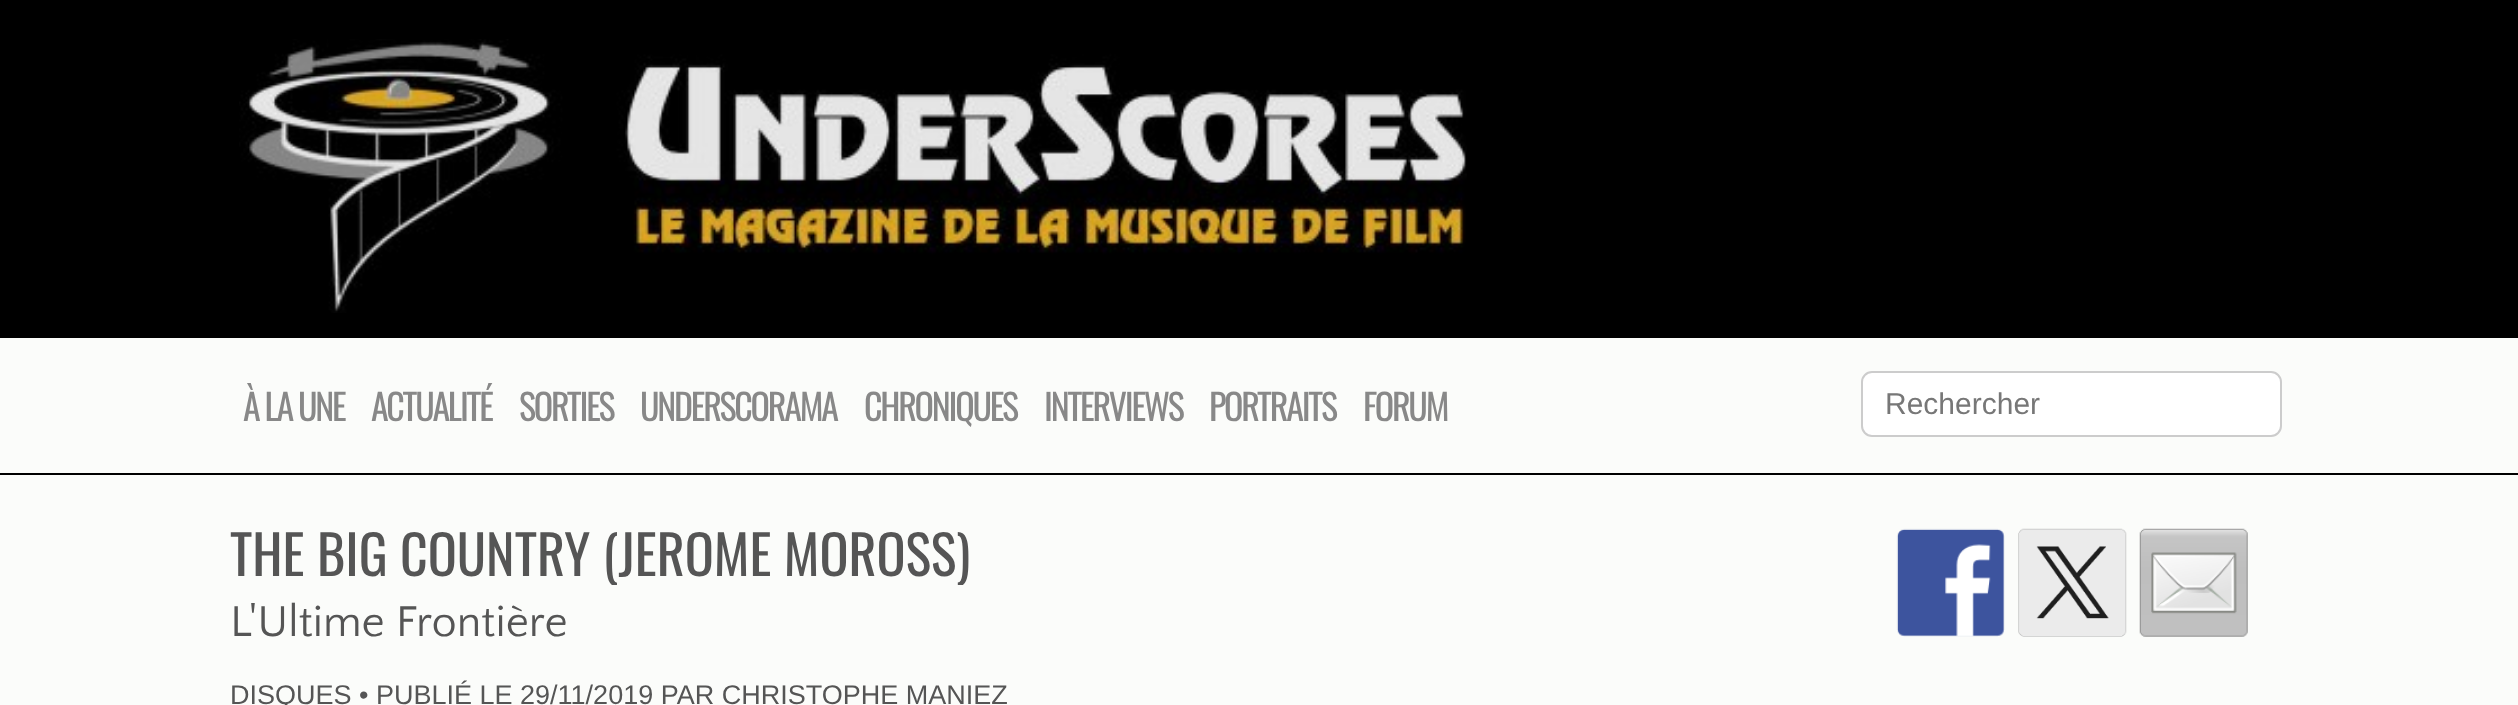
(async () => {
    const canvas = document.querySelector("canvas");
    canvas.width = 2518;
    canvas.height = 705;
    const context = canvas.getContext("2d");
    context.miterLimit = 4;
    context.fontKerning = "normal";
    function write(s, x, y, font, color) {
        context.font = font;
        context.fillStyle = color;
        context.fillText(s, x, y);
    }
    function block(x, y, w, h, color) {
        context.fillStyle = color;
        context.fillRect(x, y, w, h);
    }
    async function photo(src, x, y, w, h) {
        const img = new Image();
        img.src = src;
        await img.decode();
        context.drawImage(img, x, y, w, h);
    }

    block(0, 0, 2518, 705, "rgb(251, 252, 250)");
    block(0, 0, 2518, 338, "rgb(0, 0, 0)");
    await photo("media/1.png", 239, 39, 1228, 274);
    context.letterSpacing = "-2.25px";
    write("À LA UNE", 243, 421, "36px Oswald", "rgb(136, 136, 136)");
    write("ACTUALITÉ", 371, 421, "36px Oswald", "rgb(136, 136, 136)");
    write("SORTIES", 519, 421, "36px Oswald", "rgb(136, 136, 136)");
    write("UNDERSCORAMA", 640, 421, "36px Oswald", "rgb(136, 136, 136)");
    write("CHRONIQUES", 864, 421, "36px Oswald", "rgb(136, 136, 136)");
    write("INTERVIEWS", 1044, 421, "36px Oswald", "rgb(136, 136, 136)");
    write("PORTRAITS", 1209, 421, "36px Oswald", "rgb(136, 136, 136)");
    write("FORUM", 1363, 421, "36px Oswald", "rgb(136, 136, 136)");
    context.fillStyle = "rgb(255, 255, 255)";
    context.beginPath();
    context.roundRect(1862, 372, 419, 64, 10);
    context.fill();
    context.strokeStyle = "rgb(204, 204, 204)";
    context.lineWidth = 2;
    context.stroke();
    context.letterSpacing = "0px";
    write("Rechercher", 1885, 414, "30px Liberation Sans", "rgb(119, 119, 119)");
    block(0, 473, 2518, 2, "rgb(0, 0, 0)");
    context.save();
    context.beginPath();
    context.rect(203, 475, 1575, 110);
    context.clip();
    write("THE BIG COUNTRY (JEROME MOROSS)", 230, 576, "54px Oswald", "rgb(85, 85, 85)");
    context.restore();
    write("L'Ultime Frontière", 230, 636, "45px Quattrocento Sans", "rgb(85, 85, 85)");
    write("DISQUES • PUBLIÉ LE 29/11/2019 PAR CHRISTOPHE MANIEZ", 230, 704, "27px Liberation Sans", "rgb(85, 85, 85)");
    await photo("media/2.png", 1896, 528, 109, 109);
    await photo("media/3.png", 2018, 528, 109, 109);
    await photo("media/4.png", 2139, 528, 109, 109);
})();
